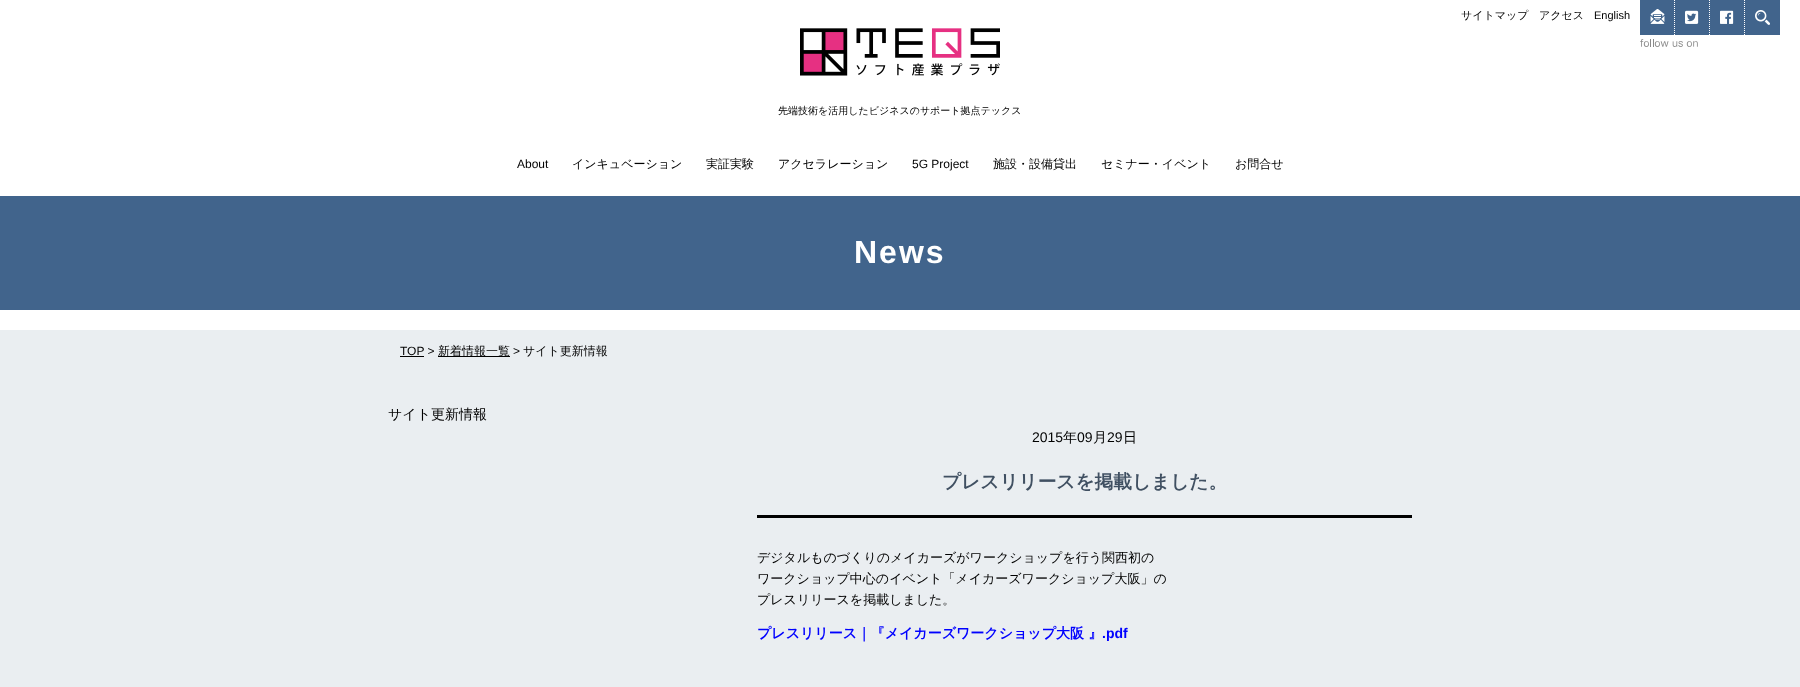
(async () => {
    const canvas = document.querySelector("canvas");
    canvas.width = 1800;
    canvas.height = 687;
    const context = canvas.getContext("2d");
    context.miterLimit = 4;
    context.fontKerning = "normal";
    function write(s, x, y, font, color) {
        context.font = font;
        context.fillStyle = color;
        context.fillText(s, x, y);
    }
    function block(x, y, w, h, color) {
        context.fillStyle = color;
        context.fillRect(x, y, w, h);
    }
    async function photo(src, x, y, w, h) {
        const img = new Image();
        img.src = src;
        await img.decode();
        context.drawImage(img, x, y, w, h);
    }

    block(0, 0, 1800, 687, "rgb(255, 255, 255)");
    await photo("media/1.png", 1640, 39, 58, 8);
    block(1640, 0, 140, 35, "rgb(65, 100, 140)");
    context.beginPath();
    context.moveTo(1674.5, 0);
    context.lineTo(1674.5, 35);
    context.strokeStyle = "rgb(255, 255, 255)";
    context.setLineDash([1, 1]);
    context.stroke();
    await photo("media/2.png", 1650, 9, 15, 15);
    write("サイトマップ", 1461, 19, "500 11px WenQuanYi Zen Hei", "rgb(0, 0, 0)");
    write("アクセス", 1539, 19, "500 11px WenQuanYi Zen Hei", "rgb(0, 0, 0)");
    write("English", 1594, 19, "11px Liberation Sans", "rgb(0, 0, 0)");
    context.beginPath();
    context.moveTo(1709.5, 0);
    context.lineTo(1709.5, 35);
    context.stroke();
    await photo("media/3.png", 1685, 10, 14, 14);
    context.beginPath();
    context.moveTo(1744.5, 0);
    context.lineTo(1744.5, 35);
    context.stroke();
    await photo("media/4.png", 1720, 10, 14, 14);
    await photo("media/5.png", 1755, 10, 15, 15);
    await photo("media/6.png", 800, 28, 200, 48);
    write("先端技術を活用したビジネスのサポート拠点テックス", 778, 114, "500 10px WenQuanYi Zen Hei", "rgb(0, 0, 0)");
    write("About", 517, 168, "12px Liberation Sans", "rgb(0, 0, 0)");
    write("インキュベーション", 572, 168, "500 12px WenQuanYi Zen Hei", "rgb(0, 0, 0)");
    write("実証実験", 706, 168, "500 12px WenQuanYi Zen Hei", "rgb(0, 0, 0)");
    write("アクセラレーション", 778, 168, "500 12px WenQuanYi Zen Hei", "rgb(0, 0, 0)");
    write("5G Project", 912, 168, "12px Liberation Sans", "rgb(0, 0, 0)");
    write("施設・設備貸出", 993, 168, "500 12px WenQuanYi Zen Hei", "rgb(0, 0, 0)");
    write("セミナー・イベント", 1101, 168, "500 12px WenQuanYi Zen Hei", "rgb(0, 0, 0)");
    write("お問合せ", 1235, 168, "500 12px WenQuanYi Zen Hei", "rgb(0, 0, 0)");
    block(0, 196, 1800, 114, "rgb(65, 100, 140)");
    context.letterSpacing = "2px";
    write("News", 854, 263, "bold 32px Liberation Sans", "rgb(255, 255, 255)");
    block(0, 330, 1800, 357, "rgb(234, 238, 241)");
    context.letterSpacing = "0px";
    write("TOP >", 400, 355, "12px Liberation Sans", "rgb(0, 0, 0)");
    block(400, 356, 24, 1, "rgb(0, 0, 0)");
    block(438, 356, 72, 1, "rgb(0, 0, 0)");
    write("新着情報一覧", 438, 355, "500 12px WenQuanYi Zen Hei", "rgb(0, 0, 0)");
    write(">", 513, 355, "12px Liberation Sans", "rgb(0, 0, 0)");
    write("サイト更新情報", 523, 355, "500 12px WenQuanYi Zen Hei", "rgb(0, 0, 0)");
    write("サイト更新情報", 388, 419, "500 14px WenQuanYi Zen Hei", "rgb(0, 0, 0)");
    write("2015", 1032, 442, "14px Liberation Sans", "rgb(0, 0, 0)");
    write("年", 1063, 442, "500 14px WenQuanYi Zen Hei", "rgb(0, 0, 0)");
    write("09", 1077, 442, "14px Liberation Sans", "rgb(0, 0, 0)");
    write("月", 1093, 442, "500 14px WenQuanYi Zen Hei", "rgb(0, 0, 0)");
    write("29", 1107, 442, "14px Liberation Sans", "rgb(0, 0, 0)");
    write("日", 1123, 442, "500 14px WenQuanYi Zen Hei", "rgb(0, 0, 0)");
    block(757, 515, 655, 3, "rgb(0, 0, 0)");
    write("プレスリリースを掲載しました。", 942, 488, "bold 18.7px WenQuanYi Zen Hei", "rgb(64, 80, 98)");
    write("デジタルものづくりのメイカーズがワークショップを行う関西初の", 757, 562, "500 13px WenQuanYi Zen Hei", "rgb(0, 0, 0)");
    write("ワークショップ中心のイベント「メイカーズワークショップ大阪」の", 757, 583, "500 13px WenQuanYi Zen Hei", "rgb(0, 0, 0)");
    write("プレスリリースを掲載しました。", 757, 604, "500 13px WenQuanYi Zen Hei", "rgb(0, 0, 0)");
    write("プレスリリース｜『メイカーズワークショップ大阪 』", 757, 638, "bold 14px WenQuanYi Zen Hei", "rgb(0, 0, 255)");
    write(".pdf", 1102, 638, "bold 14px Liberation Sans", "rgb(0, 0, 255)");
})();
